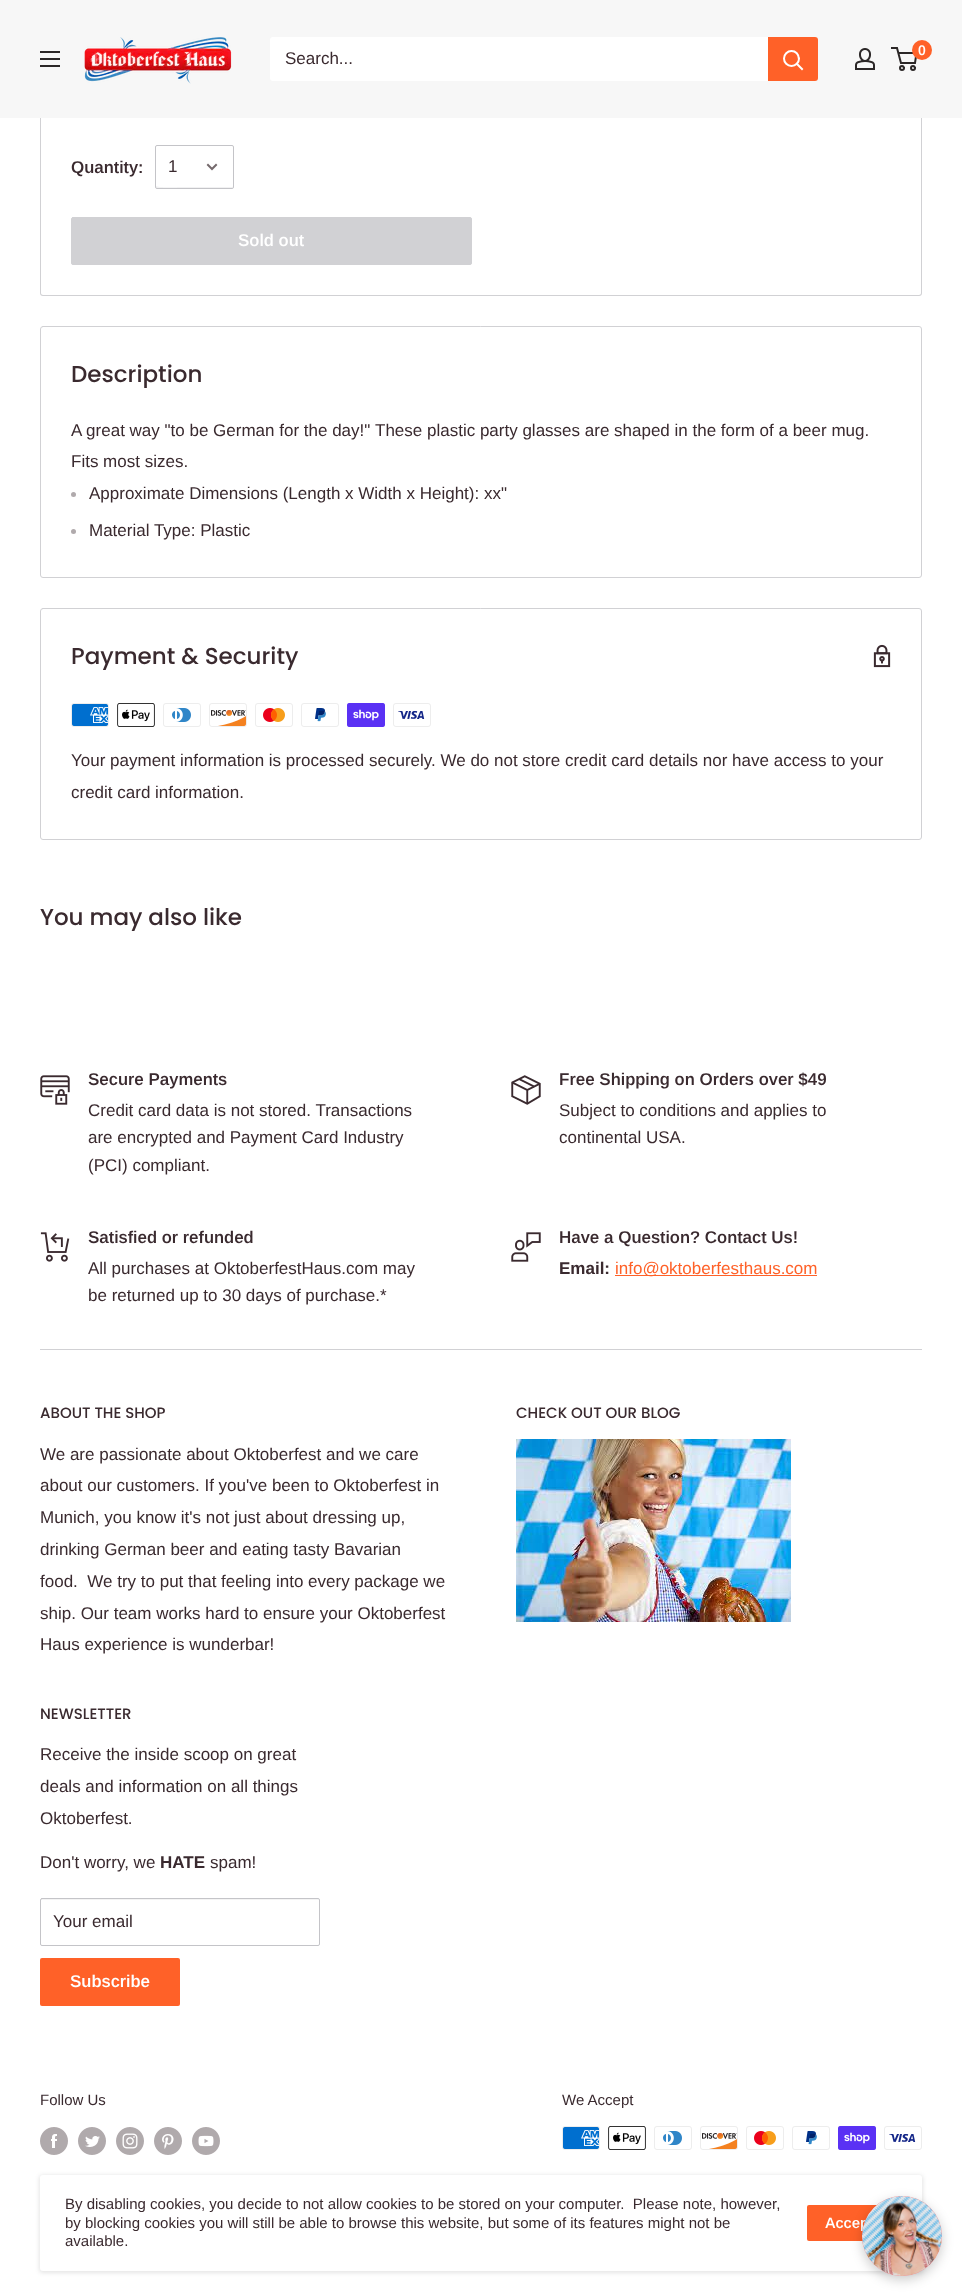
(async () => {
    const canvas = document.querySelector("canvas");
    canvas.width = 962;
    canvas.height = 2296;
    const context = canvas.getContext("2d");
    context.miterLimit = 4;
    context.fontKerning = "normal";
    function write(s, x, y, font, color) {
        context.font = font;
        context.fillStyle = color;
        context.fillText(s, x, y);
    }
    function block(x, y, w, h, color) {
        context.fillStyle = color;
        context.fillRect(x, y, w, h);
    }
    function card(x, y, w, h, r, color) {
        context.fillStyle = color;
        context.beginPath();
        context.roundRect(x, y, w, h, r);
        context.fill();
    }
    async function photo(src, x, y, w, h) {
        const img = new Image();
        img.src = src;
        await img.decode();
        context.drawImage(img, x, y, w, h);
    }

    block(0, 0, 962, 2296, "rgb(255, 255, 255)");
    context.fillStyle = "rgb(209, 209, 212)";
    context.beginPath();
    context.moveTo(43, -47);
    context.lineTo(919, -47);
    context.bezierCurveTo(921, -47, 922, -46, 922, -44);
    context.lineTo(922, 293);
    context.bezierCurveTo(922, 295, 921, 296, 919, 296);
    context.lineTo(43, 296);
    context.bezierCurveTo(41, 296, 40, 295, 40, 293);
    context.lineTo(40, -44);
    context.bezierCurveTo(40, -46, 41, -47, 43, -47);
    context.closePath();
    context.moveTo(43, -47);
    context.lineTo(919, -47);
    context.bezierCurveTo(920, -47, 921, -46, 921, -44);
    context.lineTo(921, 293);
    context.bezierCurveTo(921, 294, 920, 295, 919, 295);
    context.lineTo(43, 295);
    context.bezierCurveTo(42, 295, 41, 294, 41, 293);
    context.lineTo(41, -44);
    context.bezierCurveTo(41, -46, 42, -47, 43, -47);
    context.closePath();
    context.fill("evenodd");
    block(0, 0, 962, 118, "rgb(247, 247, 247)");
    await photo("media/1.png", 40, 51, 20, 16);
    await photo("media/2.png", 84, 37, 148, 47);
    card(270, 37, 548, 44, 3, "rgb(255, 255, 255)");
    write("Search...", 285, 64, "17px Arimo", "rgb(58, 42, 47)");
    context.fillStyle = "rgb(255, 97, 40)";
    context.beginPath();
    context.roundRect(768, 37, 50, 44, [0, 3, 3, 0]);
    context.fill();
    context.beginPath();
    context.moveTo(802, 69);
    context.lineTo(797, 64);
    context.strokeStyle = "rgb(255, 255, 255)";
    context.lineWidth = 2;
    context.lineCap = "square";
    context.stroke();
    context.beginPath();
    context.arc(791.5, 58.5, 7.5, 0, Math.PI * 2);
    context.stroke();
    await photo("media/3.png", 855, 48, 20, 22);
    context.beginPath();
    context.arc(902, 68, 2, 0, Math.PI * 2);
    context.strokeStyle = "rgb(43, 39, 39)";
    context.stroke();
    context.beginPath();
    context.arc(913, 68, 2, 0, Math.PI * 2);
    context.stroke();
    context.beginPath();
    context.moveTo(898.5, 53);
    context.lineTo(916.5, 53);
    context.lineTo(915, 63);
    context.lineTo(901, 63);
    context.lineTo(897, 48);
    context.lineTo(891, 48);
    context.lineCap = "butt";
    context.stroke();
    context.beginPath();
    context.arc(922, 50, 10, 0, Math.PI * 2);
    context.fill();
    write("0", 918, 55, "600 14px Arimo", "rgb(255, 255, 255)");
    write("Quantity:", 71, 173, "600 17px Arimo", "rgb(58, 42, 47)");
    context.fillStyle = "rgb(241, 241, 242)";
    context.beginPath();
    context.moveTo(156, 186);
    context.bezierCurveTo(156, 187, 156, 188, 157, 188);
    context.lineTo(232, 188);
    context.lineTo(233, 186);
    context.lineTo(232, 187);
    context.lineTo(180, 187);
    context.bezierCurveTo(180, 187, 157, 188, 156, 186);
    context.closePath();
    context.fill();
    context.beginPath();
    context.roundRect(155.5, 145.5, 78, 43, 1.5);
    context.strokeStyle = "rgb(196, 196, 200)";
    context.lineWidth = 1;
    context.stroke();
    write("1", 168, 172, "17px Arimo", "rgb(58, 42, 47)");
    context.beginPath();
    context.moveTo(216, 165);
    context.lineTo(212, 169);
    context.lineTo(208, 165);
    context.strokeStyle = "rgb(117, 106, 109)";
    context.lineWidth = 2;
    context.lineCap = "square";
    context.stroke();
    context.fillStyle = "rgb(209, 209, 212)";
    context.beginPath();
    context.roundRect(71.5, 217.5, 400, 47, 1.5);
    context.fill();
    context.strokeStyle = "rgb(209, 209, 212)";
    context.lineWidth = 1;
    context.stroke();
    write("Sold out", 238, 246, "600 17px Arimo", "rgb(255, 255, 255)");
    context.beginPath();
    context.roundRect(40.5, 326.5, 881, 251, 2.5);
    context.stroke();
    write("Description", 71, 382, "500 23px Poppins", "rgb(58, 42, 47)");
    write("A great way \"to be German for the day!\"", 71, 436, "17px Arimo", "rgb(58, 42, 47)");
    write("These plastic party glasses are shaped in the form of a beer mug.", 375, 436, "17px Arimo", "rgb(58, 42, 47)");
    write("Fits most sizes.", 71, 467, "17px Arimo", "rgb(58, 42, 47)");
    context.fillStyle = "rgb(176, 170, 172)";
    context.beginPath();
    context.arc(73.5, 494.5, 2.5, 0, Math.PI * 2);
    context.fill();
    write("Approximate Dimensions (Length x Width x Height): xx\"", 89, 499, "17px Arimo", "rgb(58, 42, 47)");
    context.fillStyle = "rgb(176, 170, 172)";
    context.beginPath();
    context.arc(73.5, 531.5, 2.5, 0, Math.PI * 2);
    context.fill();
    write("Material Type: Plastic", 89, 536, "17px Arimo", "rgb(58, 42, 47)");
    context.beginPath();
    context.roundRect(40.5, 608.5, 881, 231, 2.5);
    context.stroke();
    write("Payment & Security", 71, 664, "500 23px Poppins", "rgb(58, 42, 47)");
    await photo("media/4.png", 873, 644, 18, 24);
    await photo("media/5.png", 71, 703, 38, 24);
    await photo("media/6.png", 117, 703, 38, 24);
    await photo("media/7.png", 163, 703, 38, 24);
    await photo("media/8.png", 209, 703, 38, 24);
    await photo("media/9.png", 255, 703, 38, 24);
    await photo("media/10.png", 301, 703, 38, 24);
    await photo("media/11.png", 347, 703, 38, 24);
    await photo("media/12.png", 393, 703, 38, 24);
    write("Your payment information is processed securely. We do not store credit card details nor have access to your", 71, 766, "17px Arimo", "rgb(58, 42, 47)");
    write("credit card information.", 71, 798, "17px Arimo", "rgb(58, 42, 47)");
    write("You may also like", 40, 925, "500 23px Poppins", "rgb(58, 42, 47)");
    await photo("media/13.png", 40, 1075, 30, 30);
    write("Secure Payments", 88, 1085, "600 17px Arimo", "rgb(58, 42, 47)");
    write("Credit card data is not stored. Transactions", 88, 1116, "17px Arimo", "rgb(58, 42, 47)");
    write("are encrypted and Payment Card Industry", 88, 1143, "17px Arimo", "rgb(58, 42, 47)");
    write("(PCI) compliant.", 88, 1171, "17px Arimo", "rgb(58, 42, 47)");
    await photo("media/14.png", 511, 1075, 30, 30);
    write("Free Shipping on Orders over $49", 559, 1085, "600 17px Arimo", "rgb(58, 42, 47)");
    write("Subject to conditions and applies to", 559, 1116, "17px Arimo", "rgb(58, 42, 47)");
    write("continental USA.", 559, 1143, "17px Arimo", "rgb(58, 42, 47)");
    await photo("media/15.png", 40, 1232, 30, 30);
    write("Satisfied or refunded", 88, 1243, "600 17px Arimo", "rgb(58, 42, 47)");
    write("All purchases at OktoberfestHaus.com may", 88, 1274, "17px Arimo", "rgb(58, 42, 47)");
    write("be returned up to 30 days of purchase.*", 88, 1301, "17px Arimo", "rgb(58, 42, 47)");
    await photo("media/16.png", 511, 1232, 30, 30);
    write("Have a Question? Contact Us!", 559, 1243, "600 17px Arimo", "rgb(58, 42, 47)");
    write("Email:", 559, 1274, "bold 17px Arimo", "rgb(58, 42, 47)");
    block(615, 1275, 202, 1, "rgb(255, 97, 40)");
    write("info@oktoberfesthaus.com", 615, 1274, "17px Arimo", "rgb(255, 97, 40)");
    block(40, 1349, 882, 1, "rgb(209, 209, 212)");
    write("ABOUT THE SHOP", 40, 1418, "500 15px Poppins", "rgb(58, 42, 47)");
    write("We are passionate about Oktoberfest and we care", 40, 1460, "17px Arimo", "rgb(58, 42, 47)");
    write("about our customers. If you've been to Oktoberfest in", 40, 1491, "17px Arimo", "rgb(58, 42, 47)");
    write("Munich, you know it's not just about dressing up,", 40, 1523, "17px Arimo", "rgb(58, 42, 47)");
    write("drinking German beer and eating tasty Bavarian", 40, 1555, "17px Arimo", "rgb(58, 42, 47)");
    write("food.  We try to put that feeling into every package we", 40, 1587, "17px Arimo", "rgb(58, 42, 47)");
    write("ship. Our team works hard to ensure your Oktoberfest", 40, 1619, "17px Arimo", "rgb(58, 42, 47)");
    write("Haus experience is wunderbar!", 40, 1650, "17px Arimo", "rgb(58, 42, 47)");
    write("CHECK OUT OUR BLOG", 516, 1418, "500 15px Poppins", "rgb(58, 42, 47)");
    await photo("media/17.png", 516, 1439, 275, 183);
    write("NEWSLETTER", 40, 1719, "500 15px Poppins", "rgb(58, 42, 47)");
    write("Receive the inside scoop on great", 40, 1760, "17px Arimo", "rgb(58, 42, 47)");
    write("deals and information on all things", 40, 1792, "17px Arimo", "rgb(58, 42, 47)");
    write("Oktoberfest.", 40, 1824, "17px Arimo", "rgb(58, 42, 47)");
    write("Don't worry, we", 40, 1868, "17px Arimo", "rgb(58, 42, 47)");
    write("HATE", 160, 1868, "bold 17px Arimo", "rgb(58, 42, 47)");
    write("spam!", 210, 1868, "17px Arimo", "rgb(58, 42, 47)");
    context.fillStyle = "rgb(244, 244, 244)";
    context.beginPath();
    context.moveTo(42, 1900);
    context.lineTo(318, 1900);
    context.bezierCurveTo(319, 1900, 319, 1900, 319, 1901);
    context.bezierCurveTo(319, 1900, 319, 1899, 318, 1899);
    context.lineTo(42, 1899);
    context.lineTo(41, 1899);
    context.lineTo(41, 1901);
    context.bezierCurveTo(41, 1900, 41, 1900, 42, 1900);
    context.closePath();
    context.fill();
    context.beginPath();
    context.roundRect(40.5, 1898.5, 279, 47, 1.5);
    context.strokeStyle = "rgb(196, 196, 200)";
    context.stroke();
    write("Your email", 53, 1927, "17px Arimo", "rgb(58, 42, 47)");
    card(40, 1958, 140, 48, 2, "rgb(255, 97, 40)");
    write("Subscribe", 70, 1987, "600 17px Arimo", "rgb(255, 255, 255)");
    write("Follow Us", 40, 2105, "15px Arimo", "rgb(58, 42, 47)");
    await photo("media/18.png", 40, 2127, 28, 28);
    await photo("media/19.png", 78, 2127, 28, 28);
    await photo("media/20.png", 116, 2127, 28, 28);
    await photo("media/21.png", 154, 2127, 28, 28);
    await photo("media/22.png", 192, 2127, 28, 28);
    write("We Accept", 562, 2105, "15px Arimo", "rgb(58, 42, 47)");
    await photo("media/5.png", 562, 2126, 38, 24);
    await photo("media/6.png", 608, 2126, 38, 24);
    await photo("media/7.png", 654, 2126, 38, 24);
    await photo("media/8.png", 700, 2126, 38, 24);
    await photo("media/9.png", 746, 2126, 38, 24);
    await photo("media/10.png", 792, 2126, 38, 24);
    await photo("media/11.png", 838, 2126, 38, 24);
    await photo("media/12.png", 884, 2126, 38, 24);
    context.fillStyle = "rgba(0, 0, 0, 0.1)";
    context.filter = "blur(2px)";
    context.beginPath();
    context.roundRect(39, 2175, 884, 98, 4);
    context.fill();
    context.filter = "none";
    card(40, 2175, 882, 96, 3, "rgb(255, 255, 255)");
    write("By disabling cookies, you decide to not allow cookies to be stored on your computer.  Please note, however,", 65, 2209, "15px Arimo", "rgb(58, 42, 47)");
    write("by blocking cookies you will still be able to browse this website, but some of its features might not be", 65, 2228, "15px Arimo", "rgb(58, 42, 47)");
    write("available.", 65, 2246, "15px Arimo", "rgb(58, 42, 47)");
    card(807, 2205, 85, 36, 2, "rgb(255, 97, 40)");
    write("Accep", 825, 2228, "600 15px Arimo", "rgb(255, 255, 255)");
    context.fillStyle = "rgba(0, 0, 0, 0.2)";
    context.filter = "blur(6px)";
    context.beginPath();
    context.roundRect(862, 2200, 80, 80, 40);
    context.fill();
    context.filter = "none";
    context.fillStyle = "rgb(250, 139, 144)";
    context.beginPath();
    context.arc(902, 2236, 40, 0, Math.PI * 2);
    context.fill();
    await photo("media/23.png", 862, 2196, 80, 80);
})();
